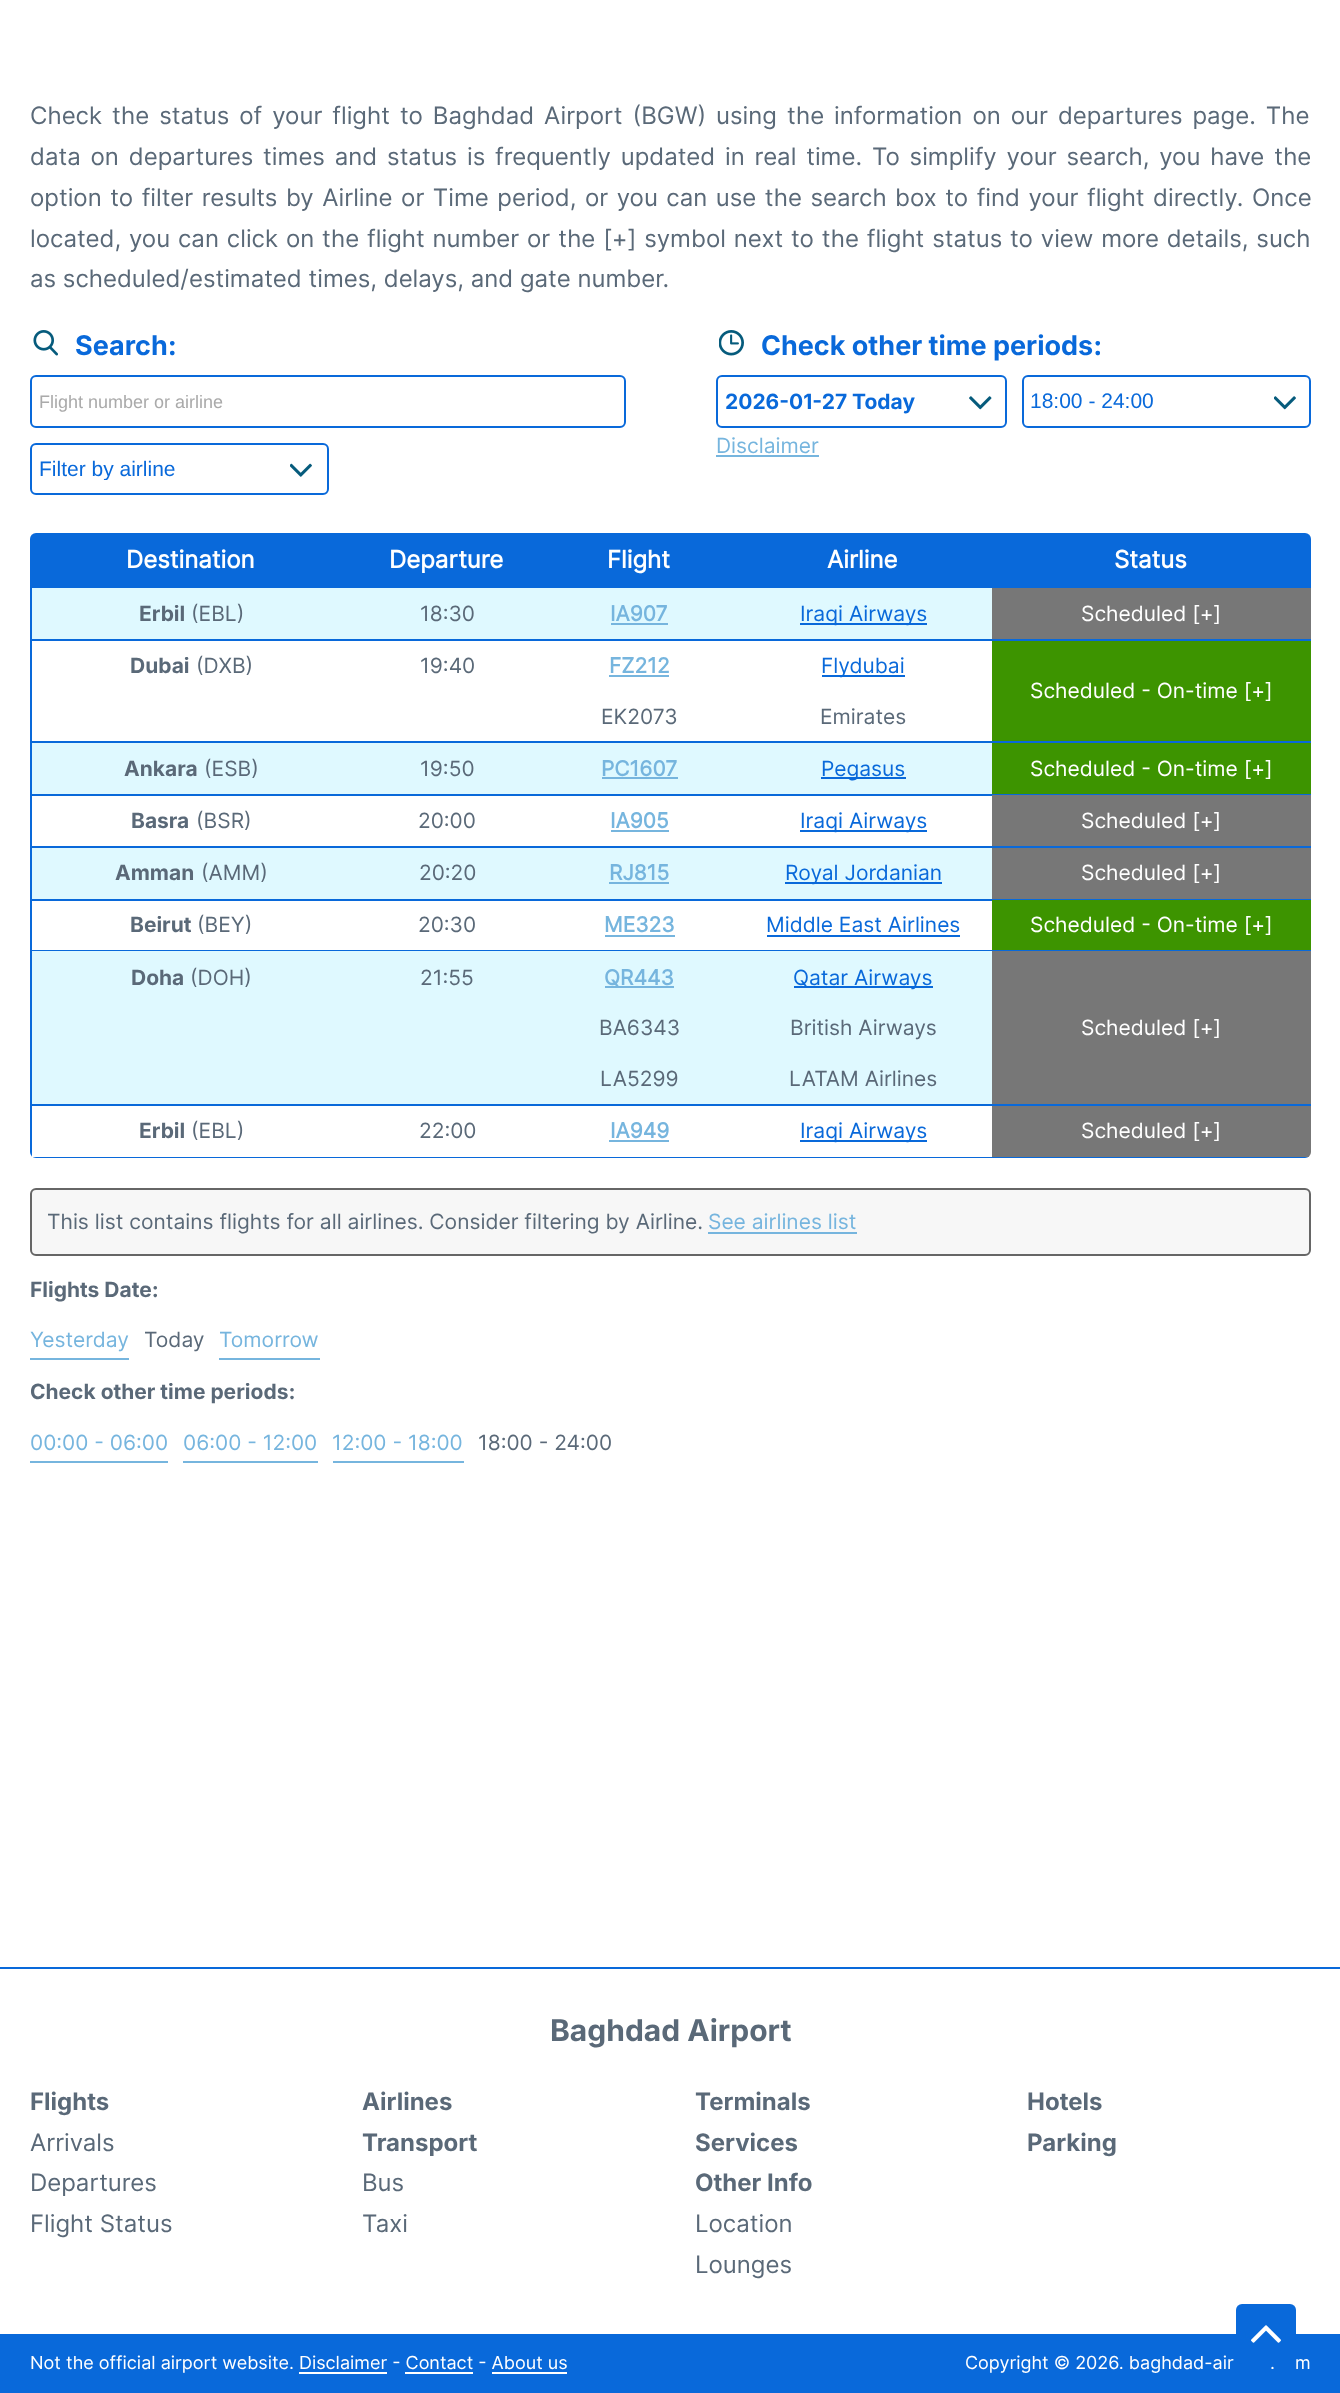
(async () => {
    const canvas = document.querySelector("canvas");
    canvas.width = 1340;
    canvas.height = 2393;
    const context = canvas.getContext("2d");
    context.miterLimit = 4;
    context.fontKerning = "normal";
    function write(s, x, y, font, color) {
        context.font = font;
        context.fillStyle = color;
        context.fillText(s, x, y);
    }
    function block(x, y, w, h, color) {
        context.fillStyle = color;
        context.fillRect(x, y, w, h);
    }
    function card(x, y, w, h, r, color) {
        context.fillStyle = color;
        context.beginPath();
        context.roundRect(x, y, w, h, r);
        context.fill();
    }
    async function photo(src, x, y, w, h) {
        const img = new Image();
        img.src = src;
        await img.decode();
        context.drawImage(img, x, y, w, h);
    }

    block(0, 0, 1340, 2393, "rgb(255, 255, 255)");
    context.wordSpacing = "3.25px";
    write("Check the status of your flight to Baghdad Airport (BGW) using the information on our departures page. The", 30, 124, "24px Inter", "rgb(90, 105, 120)");
    context.wordSpacing = "3.1px";
    write("data on departures times and status is frequently updated in real time. To simplify your search, you have the", 30, 165, "24px Inter", "rgb(90, 105, 120)");
    context.wordSpacing = "1.75px";
    write("option to filter results by Airline or Time period, or you can use the search box to find your flight directly. Once", 30, 206, "24px Inter", "rgb(90, 105, 120)");
    context.wordSpacing = "1.1px";
    write("located, you can click on the flight number or the [+] symbol next to the flight status to view more details, such", 30, 247, "24px Inter", "rgb(90, 105, 120)");
    context.wordSpacing = "0px";
    write("as scheduled/estimated times, delays, and gate number.", 30, 287, "24px Inter", "rgb(90, 105, 120)");
    await photo("media/1.png", 33, 330, 25, 26);
    write("Search:", 75, 355, "bold 27px Inter", "rgb(9, 105, 218)");
    context.beginPath();
    context.roundRect(31, 376, 594, 51, 5);
    context.strokeStyle = "rgb(9, 105, 218)";
    context.lineWidth = 2;
    context.stroke();
    write("Flight number or airline", 39, 408, "18px Liberation Sans", "rgb(170, 170, 170)");
    await photo("media/2.png", 290, 463, 22, 14);
    context.beginPath();
    context.roundRect(31, 444, 297, 50, 5);
    context.stroke();
    context.save();
    context.beginPath();
    context.rect(39, 456, 288, 24);
    context.clip();
    write("Filter by airline", 39, 476, "21px Liberation Sans", "rgb(9, 105, 218)");
    context.restore();
    await photo("media/3.png", 719, 330, 25, 26);
    write("Check other time periods:", 761, 355, "bold 27px Inter", "rgb(9, 105, 218)");
    await photo("media/4.png", 969, 396, 23, 14);
    context.beginPath();
    context.roundRect(717, 376, 289, 51, 5);
    context.stroke();
    write("2026-01-27 Today", 725, 409, "bold 21px Inter", "rgb(9, 105, 218)");
    await photo("media/5.png", 1274, 396, 22, 14);
    context.beginPath();
    context.roundRect(1023, 376, 287, 51, 5);
    context.stroke();
    write("18:00 - 24:00", 1030, 408, "21px Liberation Sans", "rgb(9, 105, 218)");
    write("Disclaimer", 716, 453, "21px Inter", "rgb(118, 181, 222)");
    block(716, 455, 103, 2, "rgb(118, 181, 222)");
    context.fillStyle = "rgb(9, 105, 218)";
    context.beginPath();
    context.roundRect(30, 533, 1281, 55, [6, 6, 0, 0]);
    context.fill();
    write("Destination", 126, 568, "bold 24px 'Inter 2'", "rgb(255, 255, 255)");
    write("Departure", 389, 568, "bold 24px 'Inter 2'", "rgb(255, 255, 255)");
    write("Flight", 607, 568, "bold 24px 'Inter 2'", "rgb(255, 255, 255)");
    write("Airline", 827, 568, "bold 24px 'Inter 2'", "rgb(255, 255, 255)");
    write("Status", 1114, 568, "bold 24px 'Inter 2'", "rgb(255, 255, 255)");
    block(32, 588, 960, 51, "rgb(223, 249, 255)");
    block(30, 639, 1281, 2, "rgb(9, 105, 218)");
    block(30, 588, 2, 53, "rgb(9, 105, 218)");
    write("Erbil", 139, 621, "bold 21px Inter", "rgb(90, 105, 120)");
    write("(EBL)", 191, 621, "21px Inter", "rgb(90, 105, 120)");
    write("18:30", 420, 621, "21px Inter", "rgb(90, 105, 120)");
    write("IA907", 610, 621, "bold 21px 'Inter 2'", "rgb(118, 181, 222)");
    block(611, 623, 57, 2, "rgb(118, 181, 222)");
    block(800, 623, 127, 2, "rgb(9, 105, 218)");
    write("Iraqi Airways", 800, 621, "21px Inter", "rgb(9, 105, 218)");
    block(992, 588, 319, 51, "rgb(119, 119, 119)");
    write("Scheduled [+]", 1081, 621, "21px Inter", "rgb(255, 255, 255)");
    block(30, 741, 1281, 2, "rgb(9, 105, 218)");
    block(30, 641, 2, 102, "rgb(9, 105, 218)");
    write("Dubai", 130, 673, "bold 21px Inter", "rgb(90, 105, 120)");
    write("(DXB)", 196, 673, "21px Inter", "rgb(90, 105, 120)");
    write("19:40", 420, 673, "21px Inter", "rgb(90, 105, 120)");
    write("FZ212", 609, 673, "bold 21px 'Inter 2'", "rgb(118, 181, 222)");
    block(609, 675, 60, 2, "rgb(118, 181, 222)");
    write("EK2073", 601, 724, "21px Inter", "rgb(90, 105, 120)");
    block(822, 675, 83, 2, "rgb(9, 105, 218)");
    write("Flydubai", 821, 673, "21px Inter", "rgb(9, 105, 218)");
    write("Emirates", 820, 724, "21px Inter", "rgb(90, 105, 120)");
    block(992, 641, 319, 100, "rgb(61, 148, 0)");
    write("Scheduled - On-time [+]", 1030, 698, "21px Inter", "rgb(255, 255, 255)");
    block(32, 743, 960, 51, "rgb(223, 249, 255)");
    block(30, 794, 1281, 2, "rgb(9, 105, 218)");
    block(30, 743, 2, 52, "rgb(9, 105, 218)");
    write("Ankara", 124, 776, "bold 21px Inter", "rgb(90, 105, 120)");
    write("(ESB)", 204, 776, "21px Inter", "rgb(90, 105, 120)");
    write("19:50", 420, 776, "21px Inter", "rgb(90, 105, 120)");
    write("PC1607", 601, 776, "bold 21px 'Inter 2'", "rgb(118, 181, 222)");
    block(602, 777, 76, 2, "rgb(118, 181, 222)");
    block(821, 777, 85, 2, "rgb(9, 105, 218)");
    write("Pegasus", 821, 776, "21px Inter", "rgb(9, 105, 218)");
    block(992, 743, 319, 51, "rgb(61, 148, 0)");
    write("Scheduled - On-time [+]", 1030, 776, "21px Inter", "rgb(255, 255, 255)");
    block(30, 846, 1281, 2, "rgb(9, 105, 218)");
    block(30, 795, 2, 53, "rgb(9, 105, 218)");
    write("Basra", 131, 828, "bold 21px Inter", "rgb(90, 105, 120)");
    write("(BSR)", 196, 828, "21px Inter", "rgb(90, 105, 120)");
    write("20:00", 418, 828, "21px Inter", "rgb(90, 105, 120)");
    write("IA905", 610, 828, "bold 21px 'Inter 2'", "rgb(118, 181, 222)");
    block(611, 830, 58, 2, "rgb(118, 181, 222)");
    block(800, 830, 127, 2, "rgb(9, 105, 218)");
    write("Iraqi Airways", 800, 828, "21px Inter", "rgb(9, 105, 218)");
    block(992, 795, 319, 51, "rgb(119, 119, 119)");
    write("Scheduled [+]", 1081, 828, "21px Inter", "rgb(255, 255, 255)");
    block(32, 848, 960, 51, "rgb(223, 249, 255)");
    block(30, 899, 1281, 2, "rgb(9, 105, 218)");
    block(30, 848, 2, 52, "rgb(9, 105, 218)");
    write("Amman", 115, 880, "bold 21px Inter", "rgb(90, 105, 120)");
    write("(AMM)", 201, 880, "21px Inter", "rgb(90, 105, 120)");
    write("20:20", 419, 880, "21px Inter", "rgb(90, 105, 120)");
    write("RJ815", 609, 880, "bold 21px 'Inter 2'", "rgb(118, 181, 222)");
    block(609, 882, 60, 2, "rgb(118, 181, 222)");
    block(785, 882, 157, 2, "rgb(9, 105, 218)");
    write("Royal Jordanian", 785, 880, "21px Inter", "rgb(9, 105, 218)");
    block(992, 848, 319, 51, "rgb(119, 119, 119)");
    write("Scheduled [+]", 1081, 880, "21px Inter", "rgb(255, 255, 255)");
    block(30, 950, 1281, 1, "rgb(9, 105, 218)");
    block(30, 900, 2, 51, "rgb(9, 105, 218)");
    write("Beirut", 130, 932, "bold 21px Inter", "rgb(90, 105, 120)");
    write("(BEY)", 197, 932, "21px Inter", "rgb(90, 105, 120)");
    write("20:30", 418, 932, "21px Inter", "rgb(90, 105, 120)");
    write("ME323", 604, 932, "bold 21px 'Inter 2'", "rgb(118, 181, 222)");
    block(605, 935, 70, 2, "rgb(118, 181, 222)");
    write("Middle East Airlines", 766, 932, "21px Inter", "rgb(9, 105, 218)");
    block(767, 935, 193, 2, "rgb(9, 105, 218)");
    block(992, 900, 319, 50, "rgb(61, 148, 0)");
    write("Scheduled - On-time [+]", 1030, 932, "21px Inter", "rgb(255, 255, 255)");
    block(32, 951, 960, 153, "rgb(223, 249, 255)");
    block(30, 1104, 1281, 2, "rgb(9, 105, 218)");
    block(30, 951, 2, 155, "rgb(9, 105, 218)");
    write("Doha", 131, 985, "bold 21px Inter", "rgb(90, 105, 120)");
    write("(DOH)", 190, 985, "21px Inter", "rgb(90, 105, 120)");
    write("21:55", 420, 985, "21px Inter", "rgb(90, 105, 120)");
    block(605, 986, 69, 2, "rgb(118, 181, 222)");
    write("QR443", 604, 985, "bold 21px 'Inter 2'", "rgb(118, 181, 222)");
    write("BA6343", 599, 1035, "21px Inter", "rgb(90, 105, 120)");
    write("LA5299", 600, 1086, "21px Inter", "rgb(90, 105, 120)");
    block(794, 986, 139, 2, "rgb(9, 105, 218)");
    write("Qatar Airways", 793, 985, "21px Inter", "rgb(9, 105, 218)");
    write("British Airways", 790, 1035, "21px Inter", "rgb(90, 105, 120)");
    write("LATAM Airlines", 789, 1086, "21px Inter", "rgb(90, 105, 120)");
    block(992, 951, 319, 153, "rgb(119, 119, 119)");
    write("Scheduled [+]", 1081, 1035, "21px Inter", "rgb(255, 255, 255)");
    context.save();
    context.beginPath();
    context.roundRect(30, 533, 1281, 625, 6);
    context.clip();
    block(30, 1157, 1281, 1, "rgb(9, 105, 218)");
    block(30, 1106, 2, 52, "rgb(9, 105, 218)");
    context.restore();
    write("Erbil", 139, 1138, "bold 21px Inter", "rgb(90, 105, 120)");
    write("(EBL)", 191, 1138, "21px Inter", "rgb(90, 105, 120)");
    write("22:00", 419, 1138, "21px Inter", "rgb(90, 105, 120)");
    write("IA949", 610, 1138, "bold 21px 'Inter 2'", "rgb(118, 181, 222)");
    block(609, 1140, 60, 2, "rgb(118, 181, 222)");
    block(800, 1140, 127, 2, "rgb(9, 105, 218)");
    write("Iraqi Airways", 800, 1138, "21px Inter", "rgb(9, 105, 218)");
    context.save();
    context.beginPath();
    context.roundRect(30, 533, 1281, 625, 6);
    context.clip();
    block(992, 1106, 319, 51, "rgb(119, 119, 119)");
    context.restore();
    write("Scheduled [+]", 1081, 1138, "21px Inter", "rgb(255, 255, 255)");
    context.fillStyle = "rgb(247, 247, 247)";
    context.beginPath();
    context.roundRect(31, 1189, 1279, 66, 5);
    context.fill();
    context.strokeStyle = "rgb(102, 102, 102)";
    context.stroke();
    write("This list contains flights for all airlines. Consider filtering by Airline.", 47, 1229, "21px Inter", "rgb(90, 105, 120)");
    write("See airlines list", 708, 1229, "21px Inter", "rgb(118, 181, 222)");
    block(708, 1232, 149, 2, "rgb(118, 181, 222)");
    write("Flights Date:", 30, 1297, "bold 21px Inter", "rgb(90, 105, 120)");
    block(30, 1358, 99, 2, "rgb(118, 181, 222)");
    write("Yesterday", 30, 1347, "21px Inter", "rgb(118, 181, 222)");
    write("Today", 144, 1347, "21px Inter", "rgb(90, 105, 120)");
    block(219, 1358, 101, 2, "rgb(118, 181, 222)");
    write("Tomorrow", 219, 1347, "21px Inter", "rgb(118, 181, 222)");
    write("Check other time periods:", 30, 1399, "bold 21px Inter", "rgb(90, 105, 120)");
    block(30, 1461, 138, 2, "rgb(118, 181, 222)");
    write("00:00 - 06:00", 30, 1450, "21px Inter", "rgb(118, 181, 222)");
    block(183, 1461, 135, 2, "rgb(118, 181, 222)");
    write("06:00 - 12:00", 183, 1450, "21px Inter", "rgb(118, 181, 222)");
    block(333, 1461, 131, 2, "rgb(118, 181, 222)");
    write("12:00 - 18:00", 332, 1450, "21px Inter", "rgb(118, 181, 222)");
    write("18:00 - 24:00", 478, 1450, "21px Inter", "rgb(90, 105, 120)");
    block(0, 1967, 1340, 2, "rgb(9, 105, 218)");
    write("Baghdad Airport", 550, 2041, "bold 30px Inter", "rgb(90, 105, 120)");
    write("Flights", 30, 2110, "bold 24px Inter", "rgb(90, 105, 120)");
    write("Arrivals", 30, 2151, "24px Inter", "rgb(90, 105, 120)");
    write("Departures", 30, 2191, "24px Inter", "rgb(90, 105, 120)");
    write("Flight Status", 30, 2232, "24px Inter", "rgb(90, 105, 120)");
    write("Airlines", 362, 2110, "bold 24px Inter", "rgb(90, 105, 120)");
    write("Transport", 362, 2151, "bold 24px Inter", "rgb(90, 105, 120)");
    write("Bus", 362, 2191, "24px Inter", "rgb(90, 105, 120)");
    write("Taxi", 362, 2232, "24px Inter", "rgb(90, 105, 120)");
    write("Terminals", 695, 2110, "bold 24px Inter", "rgb(90, 105, 120)");
    write("Services", 695, 2151, "bold 24px Inter", "rgb(90, 105, 120)");
    write("Other Info", 695, 2191, "bold 24px Inter", "rgb(90, 105, 120)");
    write("Location", 695, 2232, "24px Inter", "rgb(90, 105, 120)");
    write("Lounges", 695, 2273, "24px Inter", "rgb(90, 105, 120)");
    write("Hotels", 1027, 2110, "bold 24px Inter", "rgb(90, 105, 120)");
    write("Parking", 1027, 2151, "bold 24px Inter", "rgb(90, 105, 120)");
    block(0, 2334, 1340, 59, "rgb(9, 105, 218)");
    card(1236, 2304, 60, 60, 6, "rgb(9, 105, 218)");
    await photo("media/6.png", 1251, 2325, 30, 18);
    write("Not the official airport website. Disclaimer - Contact - About us", 30, 2369, "18px Inter", "rgb(255, 255, 255)");
    block(299, 2372, 88, 2, "rgb(255, 255, 255)");
    block(405, 2372, 68, 2, "rgb(255, 255, 255)");
    block(492, 2372, 75, 2, "rgb(255, 255, 255)");
    write("Copyright © 2026. baghdad-air", 965, 2369, "18px Inter", "rgb(255, 255, 255)");
    write(".", 1270, 2369, "18px Inter", "rgb(255, 255, 255)");
    write("m", 1295, 2369, "18px Inter", "rgb(255, 255, 255)");
})();
